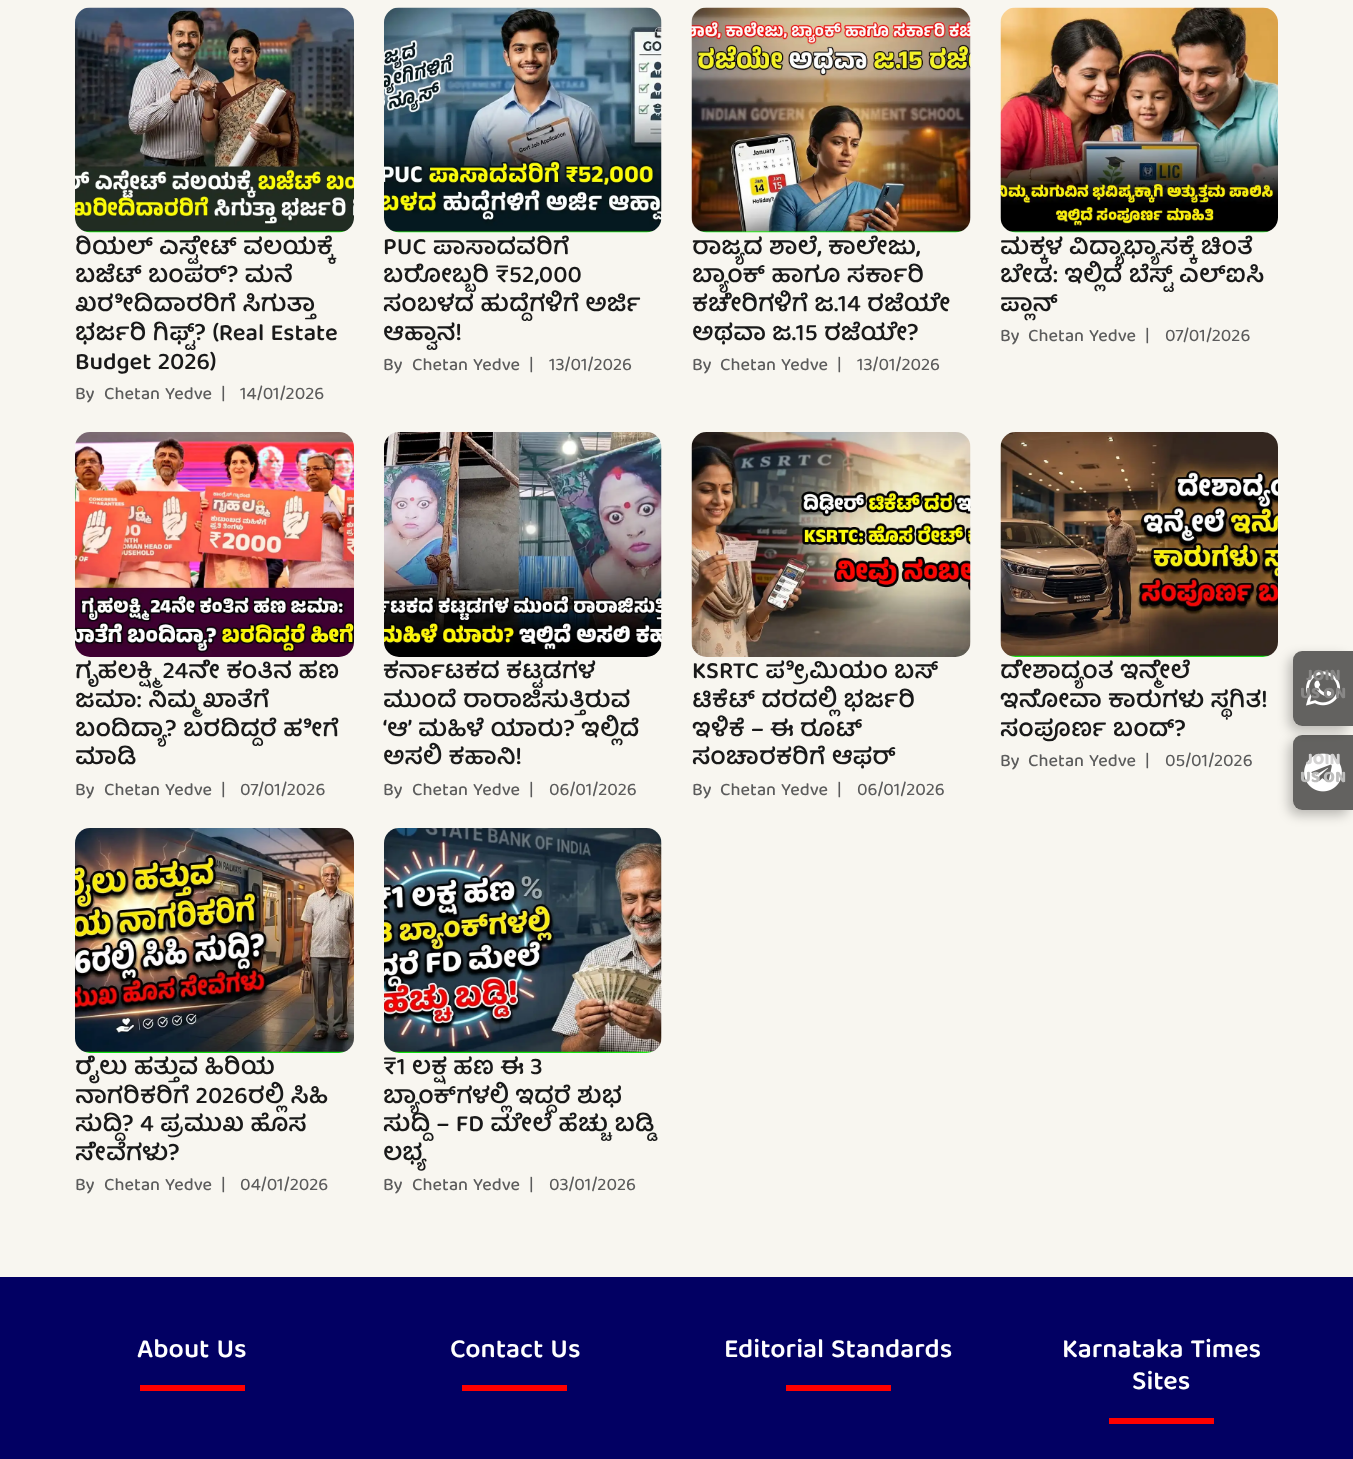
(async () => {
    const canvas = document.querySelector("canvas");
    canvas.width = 1353;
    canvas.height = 1459;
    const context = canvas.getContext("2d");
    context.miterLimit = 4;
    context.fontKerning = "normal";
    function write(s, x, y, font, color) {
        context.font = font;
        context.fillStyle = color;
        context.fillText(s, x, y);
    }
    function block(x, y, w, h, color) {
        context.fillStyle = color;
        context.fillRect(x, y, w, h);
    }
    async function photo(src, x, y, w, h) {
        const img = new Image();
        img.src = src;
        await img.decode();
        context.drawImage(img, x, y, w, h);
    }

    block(0, 0, 1353, 1459, "rgb(248, 246, 240)");
    await photo("media/1.png", 75, 7, 279, 226);
    write("ರಿಯಲ್ ಎಸ್ಟೇಟ್ ವಲಯಕ್ಕೆ", 75, 254, "600 24px 'Baloo Tamma 2'", "rgb(25, 25, 25)");
    write("ಬಜೆಟ್ ಬಂಪರ್? ಮನೆ", 75, 282, "600 24px 'Baloo Tamma 2'", "rgb(25, 25, 25)");
    write("ಖರೀದಿದಾರರಿಗೆ ಸಿಗುತ್ತಾ", 75, 311, "600 24px 'Baloo Tamma 2'", "rgb(25, 25, 25)");
    write("ಭರ್ಜರಿ ಗಿಫ್ಟ್? (Real Estate", 75, 340, "600 24px 'Baloo Tamma 2'", "rgb(25, 25, 25)");
    write("Budget 2026)", 75, 369, "600 24px 'Baloo Tamma 2'", "rgb(25, 25, 25)");
    write("By", 75, 399, "500 18px 'Baloo Tamma 2'", "rgb(91, 91, 91)");
    write("Chetan Yedve", 104, 399, "500 18px 'Baloo Tamma 2'", "rgb(91, 91, 91)");
    write("|", 221, 399, "500 18px 'Baloo Tamma 2'", "rgb(91, 91, 91)");
    write("14/01/2026", 240, 399, "500 18px 'Baloo Tamma 2'", "rgb(91, 91, 91)");
    await photo("media/2.png", 384, 7, 278, 226);
    write("PUC ಪಾಸಾದವರಿಗೆ", 383, 254, "600 24px 'Baloo Tamma 2'", "rgb(25, 25, 25)");
    write("ಬರೋಬ್ಬರಿ ₹52,000", 383, 282, "600 24px 'Baloo Tamma 2'", "rgb(25, 25, 25)");
    write("ಸಂಬಳದ ಹುದ್ದೆಗಳಿಗೆ ಅರ್ಜಿ", 383, 311, "600 24px 'Baloo Tamma 2'", "rgb(25, 25, 25)");
    write("ಆಹ್ವಾನ!", 383, 340, "600 24px 'Baloo Tamma 2'", "rgb(25, 25, 25)");
    write("By", 383, 370, "500 18px 'Baloo Tamma 2'", "rgb(91, 91, 91)");
    write("Chetan Yedve", 412, 370, "500 18px 'Baloo Tamma 2'", "rgb(91, 91, 91)");
    write("|", 529, 370, "500 18px 'Baloo Tamma 2'", "rgb(91, 91, 91)");
    write("13/01/2026", 549, 370, "500 18px 'Baloo Tamma 2'", "rgb(91, 91, 91)");
    await photo("media/3.png", 691, 7, 280, 226);
    write("ರಾಜ್ಯದ ಶಾಲೆ, ಕಾಲೇಜು,", 692, 254, "600 24px 'Baloo Tamma 2'", "rgb(25, 25, 25)");
    write("ಬ್ಯಾಂಕ್ ಹಾಗೂ ಸರ್ಕಾರಿ", 692, 282, "600 24px 'Baloo Tamma 2'", "rgb(25, 25, 25)");
    write("ಕಚೇರಿಗಳಿಗೆ ಜ.14 ರಜೆಯೇ", 692, 311, "600 24px 'Baloo Tamma 2'", "rgb(25, 25, 25)");
    write("ಅಥವಾ ಜ.15 ರಜೆಯೇ?", 692, 340, "600 24px 'Baloo Tamma 2'", "rgb(25, 25, 25)");
    write("By", 692, 370, "500 18px 'Baloo Tamma 2'", "rgb(91, 91, 91)");
    write("Chetan Yedve", 720, 370, "500 18px 'Baloo Tamma 2'", "rgb(91, 91, 91)");
    write("|", 837, 370, "500 18px 'Baloo Tamma 2'", "rgb(91, 91, 91)");
    write("13/01/2026", 857, 370, "500 18px 'Baloo Tamma 2'", "rgb(91, 91, 91)");
    await photo("media/4.png", 1000, 7, 278, 226);
    write("ಮಕ್ಕಳ ವಿದ್ಯಾಭ್ಯಾಸಕ್ಕೆ ಚಿಂತೆ", 1000, 254, "600 24px 'Baloo Tamma 2'", "rgb(25, 25, 25)");
    write("ಬೇಡ: ಇಲ್ಲಿದೆ ಬೆಸ್ಟ್ ಎಲ್‌ಐಸಿ", 1000, 282, "600 24px 'Baloo Tamma 2'", "rgb(25, 25, 25)");
    write("ಪ್ಲಾನ್", 1000, 311, "600 24px 'Baloo Tamma 2'", "rgb(25, 25, 25)");
    write("By", 1000, 341, "500 18px 'Baloo Tamma 2'", "rgb(91, 91, 91)");
    write("Chetan Yedve", 1028, 341, "500 18px 'Baloo Tamma 2'", "rgb(91, 91, 91)");
    write("|", 1145, 341, "500 18px 'Baloo Tamma 2'", "rgb(91, 91, 91)");
    write("07/01/2026", 1165, 341, "500 18px 'Baloo Tamma 2'", "rgb(91, 91, 91)");
    await photo("media/5.png", 75, 432, 279, 225);
    write("ಗೃಹಲಕ್ಷ್ಮಿ 24ನೇ ಕಂತಿನ ಹಣ", 75, 678, "600 24px 'Baloo Tamma 2'", "rgb(25, 25, 25)");
    write("ಜಮಾ: ನಿಮ್ಮ ಖಾತೆಗೆ", 75, 707, "600 24px 'Baloo Tamma 2'", "rgb(25, 25, 25)");
    write("ಬಂದಿದ್ಯಾ? ಬರದಿದ್ದರೆ ಹೀಗೆ", 75, 736, "600 24px 'Baloo Tamma 2'", "rgb(25, 25, 25)");
    write("ಮಾಡಿ", 75, 764, "600 24px 'Baloo Tamma 2'", "rgb(25, 25, 25)");
    write("By", 75, 795, "500 18px 'Baloo Tamma 2'", "rgb(91, 91, 91)");
    write("Chetan Yedve", 104, 795, "500 18px 'Baloo Tamma 2'", "rgb(91, 91, 91)");
    write("|", 221, 795, "500 18px 'Baloo Tamma 2'", "rgb(91, 91, 91)");
    write("07/01/2026", 240, 795, "500 18px 'Baloo Tamma 2'", "rgb(91, 91, 91)");
    await photo("media/6.png", 384, 432, 278, 225);
    write("ಕರ್ನಾಟಕದ ಕಟ್ಟಡಗಳ", 383, 678, "600 24px 'Baloo Tamma 2'", "rgb(25, 25, 25)");
    write("ಮುಂದೆ ರಾರಾಜಿಸುತ್ತಿರುವ", 383, 707, "600 24px 'Baloo Tamma 2'", "rgb(25, 25, 25)");
    write("‘ಆ’ ಮಹಿಳೆ ಯಾರು? ಇಲ್ಲಿದೆ", 383, 736, "600 24px 'Baloo Tamma 2'", "rgb(25, 25, 25)");
    write("ಅಸಲಿ ಕಹಾನಿ!", 383, 764, "600 24px 'Baloo Tamma 2'", "rgb(25, 25, 25)");
    write("By", 383, 795, "500 18px 'Baloo Tamma 2'", "rgb(91, 91, 91)");
    write("Chetan Yedve", 412, 795, "500 18px 'Baloo Tamma 2'", "rgb(91, 91, 91)");
    write("|", 529, 795, "500 18px 'Baloo Tamma 2'", "rgb(91, 91, 91)");
    write("06/01/2026", 549, 795, "500 18px 'Baloo Tamma 2'", "rgb(91, 91, 91)");
    await photo("media/7.png", 691, 432, 280, 225);
    write("KSRTC ಪ್ರೀಮಿಯಂ ಬಸ್", 692, 678, "600 24px 'Baloo Tamma 2'", "rgb(25, 25, 25)");
    write("ಟಿಕೆಟ್ ದರದಲ್ಲಿ ಭರ್ಜರಿ", 692, 707, "600 24px 'Baloo Tamma 2'", "rgb(25, 25, 25)");
    write("ಇಳಿಕೆ – ಈ ರೂಟ್‌", 692, 736, "600 24px 'Baloo Tamma 2'", "rgb(25, 25, 25)");
    write("ಸಂಚಾರಕರಿಗೆ ಆಫರ್", 692, 764, "600 24px 'Baloo Tamma 2'", "rgb(25, 25, 25)");
    write("By", 692, 795, "500 18px 'Baloo Tamma 2'", "rgb(91, 91, 91)");
    write("Chetan Yedve", 720, 795, "500 18px 'Baloo Tamma 2'", "rgb(91, 91, 91)");
    write("|", 837, 795, "500 18px 'Baloo Tamma 2'", "rgb(91, 91, 91)");
    write("06/01/2026", 857, 795, "500 18px 'Baloo Tamma 2'", "rgb(91, 91, 91)");
    await photo("media/8.png", 1000, 432, 278, 225);
    write("ದೇಶಾದ್ಯಂತ ಇನ್ಮೇಲೆ", 1000, 678, "600 24px 'Baloo Tamma 2'", "rgb(25, 25, 25)");
    write("ಇನೋವಾ ಕಾರುಗಳು ಸ್ಥಗಿತ!", 1000, 707, "600 24px 'Baloo Tamma 2'", "rgb(25, 25, 25)");
    write("ಸಂಪೂರ್ಣ ಬಂದ್?", 1000, 736, "600 24px 'Baloo Tamma 2'", "rgb(25, 25, 25)");
    write("By", 1000, 766, "500 18px 'Baloo Tamma 2'", "rgb(91, 91, 91)");
    write("Chetan Yedve", 1028, 766, "500 18px 'Baloo Tamma 2'", "rgb(91, 91, 91)");
    write("|", 1145, 766, "500 18px 'Baloo Tamma 2'", "rgb(91, 91, 91)");
    write("05/01/2026", 1165, 766, "500 18px 'Baloo Tamma 2'", "rgb(91, 91, 91)");
    await photo("media/9.png", 75, 828, 279, 225);
    write("ರೈಲು ಹತ್ತುವ ಹಿರಿಯ", 75, 1074, "600 24px 'Baloo Tamma 2'", "rgb(25, 25, 25)");
    write("ನಾಗರಿಕರಿಗೆ 2026ರಲ್ಲಿ ಸಿಹಿ", 75, 1103, "600 24px 'Baloo Tamma 2'", "rgb(25, 25, 25)");
    write("ಸುದ್ದಿ? 4 ಪ್ರಮುಖ ಹೊಸ", 75, 1131, "600 24px 'Baloo Tamma 2'", "rgb(25, 25, 25)");
    write("ಸೇವೆಗಳು?", 75, 1160, "600 24px 'Baloo Tamma 2'", "rgb(25, 25, 25)");
    write("By", 75, 1190, "500 18px 'Baloo Tamma 2'", "rgb(91, 91, 91)");
    write("Chetan Yedve", 104, 1190, "500 18px 'Baloo Tamma 2'", "rgb(91, 91, 91)");
    write("|", 221, 1190, "500 18px 'Baloo Tamma 2'", "rgb(91, 91, 91)");
    write("04/01/2026", 240, 1190, "500 18px 'Baloo Tamma 2'", "rgb(91, 91, 91)");
    await photo("media/10.png", 384, 828, 278, 225);
    write("₹1 ಲಕ್ಷ ಹಣ ಈ 3", 383, 1074, "600 24px 'Baloo Tamma 2'", "rgb(25, 25, 25)");
    write("ಬ್ಯಾಂಕ್‌ಗಳಲ್ಲಿ ಇದ್ದರೆ ಶುಭ", 383, 1103, "600 24px 'Baloo Tamma 2'", "rgb(25, 25, 25)");
    write("ಸುದ್ದಿ – FD ಮೇಲೆ ಹೆಚ್ಚು ಬಡ್ಡಿ", 383, 1131, "600 24px 'Baloo Tamma 2'", "rgb(25, 25, 25)");
    write("ಲಭ್ಯ", 383, 1160, "600 24px 'Baloo Tamma 2'", "rgb(25, 25, 25)");
    write("By", 383, 1190, "500 18px 'Baloo Tamma 2'", "rgb(91, 91, 91)");
    write("Chetan Yedve", 412, 1190, "500 18px 'Baloo Tamma 2'", "rgb(91, 91, 91)");
    write("|", 529, 1190, "500 18px 'Baloo Tamma 2'", "rgb(91, 91, 91)");
    write("03/01/2026", 549, 1190, "500 18px 'Baloo Tamma 2'", "rgb(91, 91, 91)");
    context.save();
    context.beginPath();
    context.moveTo(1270, 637);
    context.lineTo(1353, 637);
    context.lineTo(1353, 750);
    context.lineTo(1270, 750);
    context.closePath();
    context.moveTo(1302, 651);
    context.lineTo(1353, 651);
    context.lineTo(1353, 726);
    context.lineTo(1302, 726);
    context.bezierCurveTo(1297, 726, 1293, 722, 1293, 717);
    context.lineTo(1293, 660);
    context.bezierCurveTo(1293, 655, 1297, 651, 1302, 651);
    context.closePath();
    context.clip("evenodd");
    context.fillStyle = "rgba(0, 0, 0, 0.25)";
    context.filter = "blur(6px)";
    context.beginPath();
    context.roundRect(1289, 656, 60, 75, 9);
    context.fill();
    context.filter = "none";
    context.restore();
    context.fillStyle = "rgba(0, 0, 0, 0.6)";
    context.beginPath();
    context.roundRect(1293, 651, 60, 75, [9, 0, 0, 9]);
    context.fill();
    await photo("media/11.png", 1306, 671, 35, 35);
    write("JOIN", 1306, 680, "800 16.5px 'Baloo Tamma 2'", "rgb(137, 136, 135)");
    write("US ON", 1300, 698, "800 16.5px 'Baloo Tamma 2'", "rgb(137, 136, 135)");
    context.save();
    context.beginPath();
    context.moveTo(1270, 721);
    context.lineTo(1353, 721);
    context.lineTo(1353, 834);
    context.lineTo(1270, 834);
    context.closePath();
    context.moveTo(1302, 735);
    context.lineTo(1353, 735);
    context.lineTo(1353, 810);
    context.lineTo(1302, 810);
    context.bezierCurveTo(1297, 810, 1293, 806, 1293, 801);
    context.lineTo(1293, 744);
    context.bezierCurveTo(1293, 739, 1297, 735, 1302, 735);
    context.closePath();
    context.clip("evenodd");
    context.fillStyle = "rgba(0, 0, 0, 0.25)";
    context.filter = "blur(6px)";
    context.beginPath();
    context.roundRect(1289, 740, 60, 75, 9);
    context.fill();
    context.filter = "none";
    context.restore();
    context.fillStyle = "rgba(0, 0, 0, 0.6)";
    context.beginPath();
    context.roundRect(1293, 735, 60, 75, [9, 0, 0, 9]);
    context.fill();
    await photo("media/12.png", 1304, 753, 38, 39);
    write("JOIN", 1306, 764, "800 16.5px 'Baloo Tamma 2'", "rgb(211, 210, 210)");
    write("US ON", 1300, 782, "800 16.5px 'Baloo Tamma 2'", "rgb(189, 189, 188)");
    block(0, 1277, 1353, 182, "rgb(2, 0, 99)");
    write("About Us", 137, 1357, "600 27px 'Baloo Tamma 2'", "rgb(255, 255, 255)");
    block(140, 1385, 105, 6, "rgb(255, 0, 0)");
    write("Contact Us", 450, 1357, "600 27px 'Baloo Tamma 2'", "rgb(255, 255, 255)");
    block(462, 1385, 105, 6, "rgb(255, 0, 0)");
    write("Editorial Standards", 724, 1357, "600 27px 'Baloo Tamma 2'", "rgb(255, 255, 255)");
    block(786, 1385, 105, 6, "rgb(255, 0, 0)");
    write("Karnataka Times", 1062, 1357, "600 27px 'Baloo Tamma 2'", "rgb(255, 255, 255)");
    write("Sites", 1132, 1389, "600 27px 'Baloo Tamma 2'", "rgb(255, 255, 255)");
    block(1109, 1418, 105, 6, "rgb(255, 0, 0)");
})();
